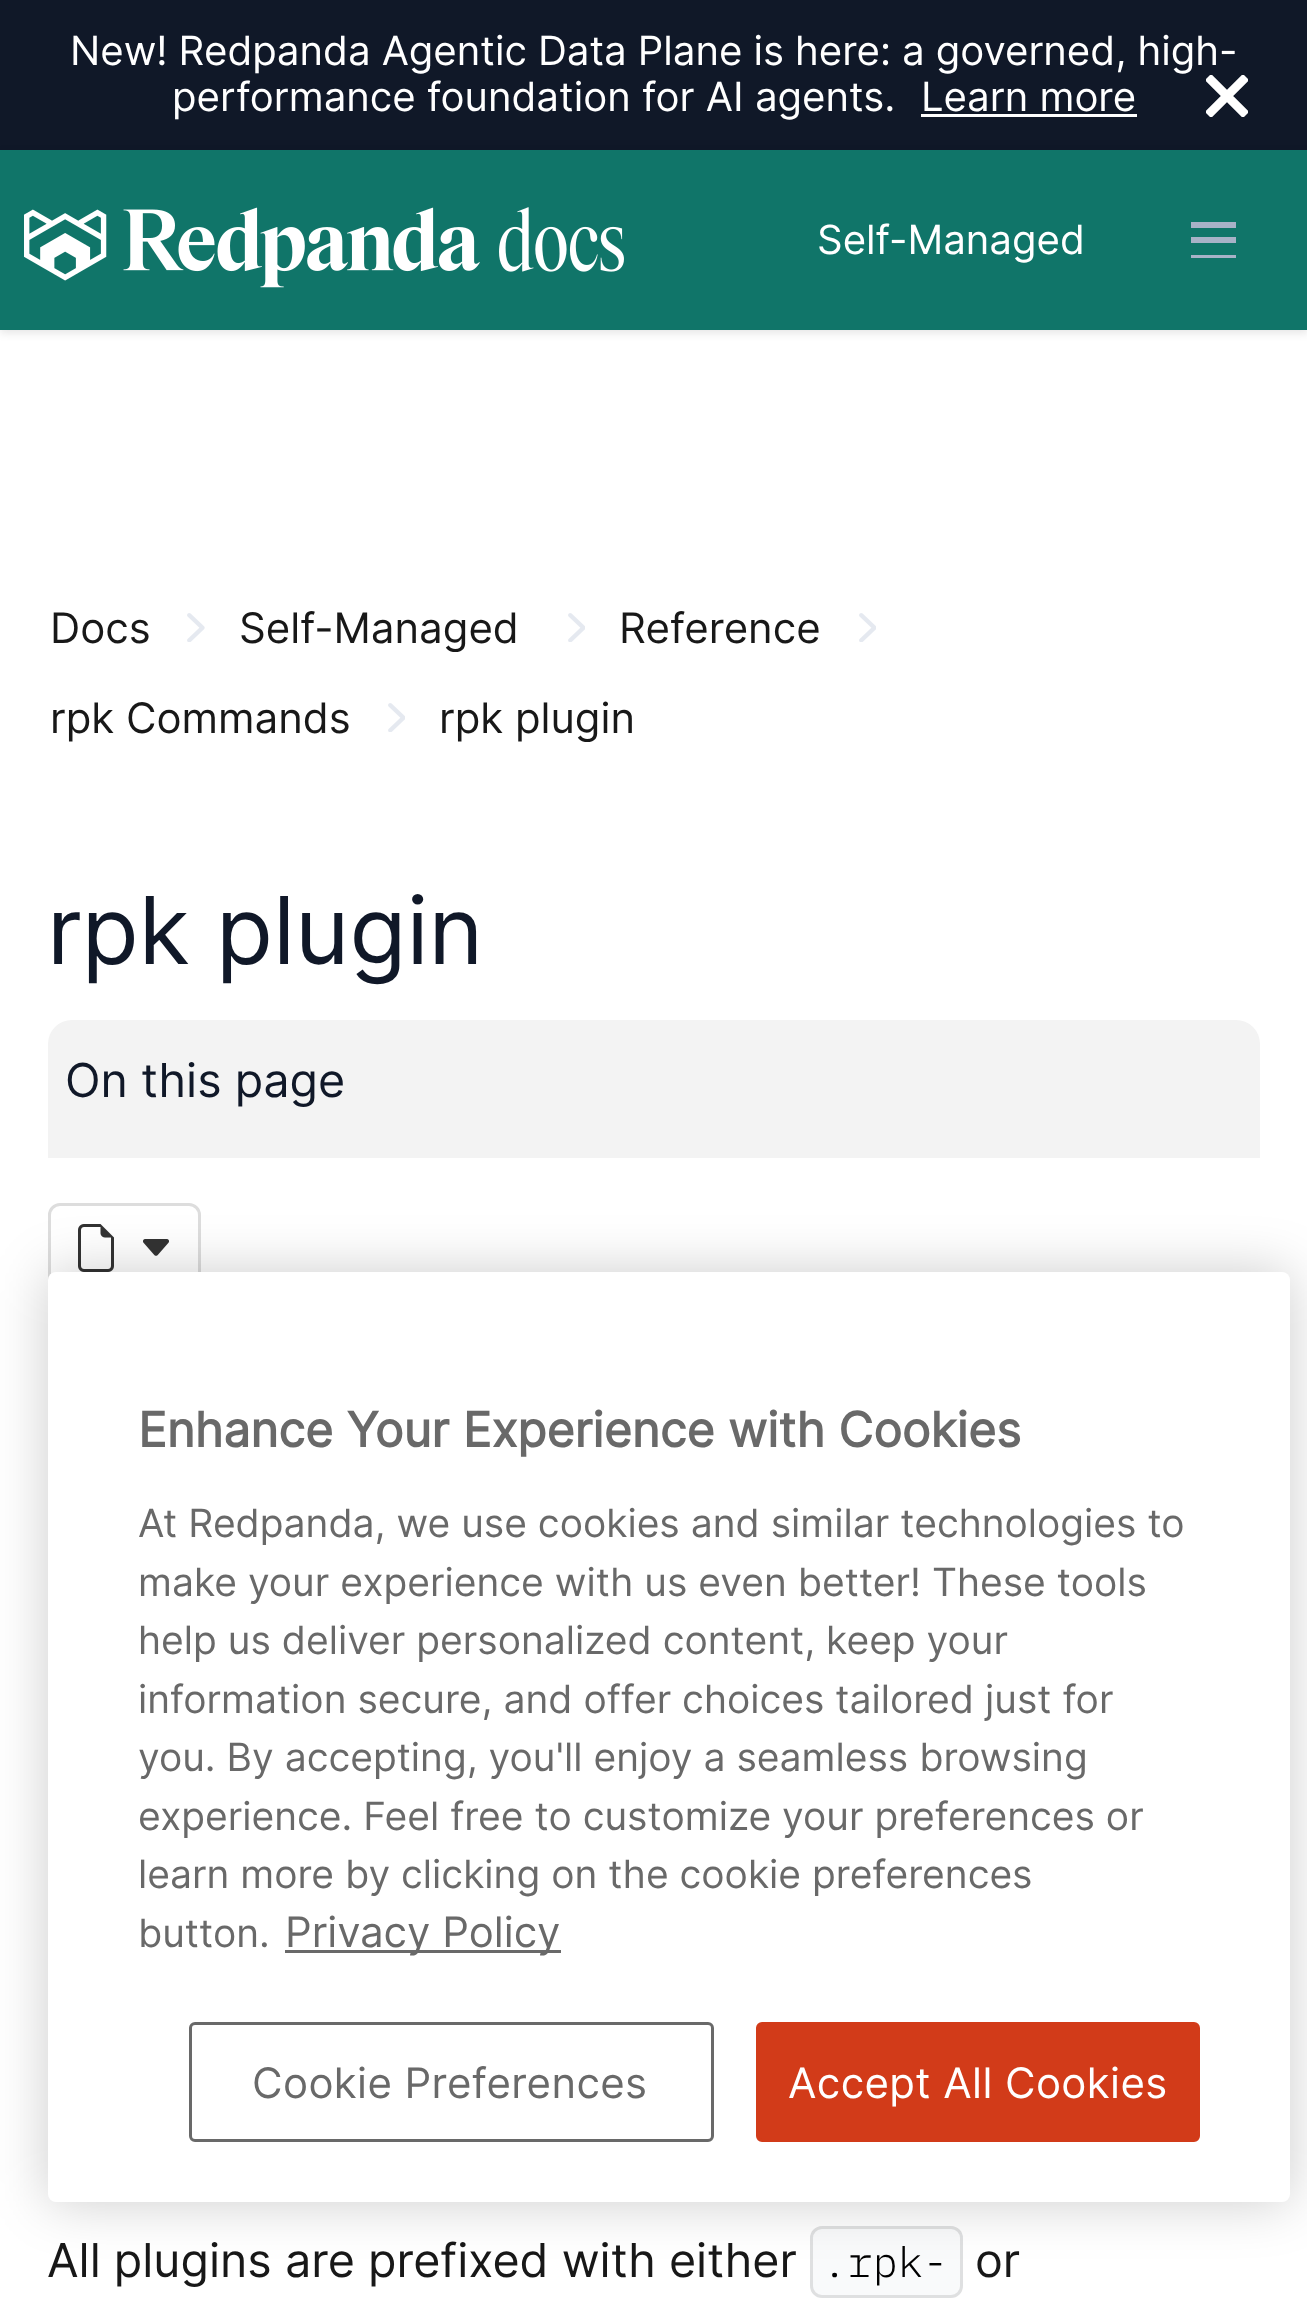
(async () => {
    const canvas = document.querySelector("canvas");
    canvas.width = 1307;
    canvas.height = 2298;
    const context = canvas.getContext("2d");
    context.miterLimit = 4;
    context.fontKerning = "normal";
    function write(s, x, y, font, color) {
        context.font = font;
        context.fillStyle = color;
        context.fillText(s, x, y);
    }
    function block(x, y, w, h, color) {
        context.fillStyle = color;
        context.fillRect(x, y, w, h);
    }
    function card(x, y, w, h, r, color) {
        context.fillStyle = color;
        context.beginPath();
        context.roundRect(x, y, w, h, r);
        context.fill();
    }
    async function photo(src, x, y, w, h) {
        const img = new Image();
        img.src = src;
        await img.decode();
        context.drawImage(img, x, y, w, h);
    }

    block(0, 0, 1307, 2298, "rgb(255, 255, 255)");
    block(0, 0, 1307, 150, "rgb(16, 24, 40)");
    context.wordSpacing = "-0.25px";
    write("New! Redpanda Agentic Data Plane is here: a governed, high-", 70, 65, "40.2px Inter", "rgb(255, 255, 255)");
    context.wordSpacing = "0px";
    write("performance foundation for AI agents.", 172, 111, "40.2px Inter", "rgb(255, 255, 255)");
    write("Learn more", 921, 111, "40.2px Inter", "rgb(255, 255, 255)");
    block(921, 114, 216, 3, "rgb(255, 255, 255)");
    context.save();
    context.beginPath();
    context.rect(1206, 75, 42, 42);
    context.clip();
    context.beginPath();
    context.moveTo(1208, 77);
    context.lineTo(1246, 115);
    context.moveTo(1246, 77);
    context.lineTo(1208, 115);
    context.strokeStyle = "rgb(255, 255, 255)";
    context.lineWidth = 8.7;
    context.stroke();
    context.restore();
    context.fillStyle = "rgba(0, 0, 0, 0.1)";
    context.filter = "blur(4.5px)";
    context.beginPath();
    context.rect(0, 153, 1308, 180);
    context.fill();
    context.filter = "none";
    block(0, 150, 1307, 180, "rgb(16, 117, 105)");
    await photo("media/1.png", 24, 207, 600, 81);
    write("Self-Managed", 817, 254, "40.2px Inter", "rgb(255, 255, 255)");
    block(1191, 222, 45, 6, "rgb(168, 178, 199)");
    block(1191, 237, 45, 6, "rgb(168, 178, 199)");
    block(1191, 255, 45, 3, "rgb(168, 178, 199)");
    write("Docs", 50, 643, "42px Inter", "rgb(24, 24, 24)");
    await photo("media/2.png", 187, 613, 18, 29);
    write("Self-Managed", 239, 643, "42px Inter", "rgb(24, 24, 24)");
    await photo("media/3.png", 568, 613, 17, 29);
    write("Reference", 619, 643, "42px Inter", "rgb(24, 24, 24)");
    await photo("media/3.png", 859, 613, 17, 29);
    write("rpk Commands", 50, 733, "42px Inter", "rgb(24, 24, 24)");
    await photo("media/3.png", 388, 703, 17, 29);
    write("rpk plugin", 439, 733, "42px Inter", "rgb(24, 24, 24)");
    write("rpk plugin", 47, 964, "93.5px Inter", "rgb(16, 24, 40)");
    context.fillStyle = "rgb(243, 243, 243)";
    context.beginPath();
    context.roundRect(48, 1020, 1212, 138, [24, 24, 0, 0]);
    context.fill();
    write("On this page", 65, 1097, "46.7px Inter", "rgb(16, 24, 40)");
    context.beginPath();
    context.roundRect(49.5, 1204.5, 150, 87, 10.5);
    context.strokeStyle = "rgb(221, 221, 221)";
    context.lineWidth = 3;
    context.stroke();
    await photo("media/4.png", 78, 1224, 36, 48);
    await photo("media/5.png", 143, 1239, 26, 17);
    write("All plugins are prefixed with either", 47, 2277, "46.7px Inter", "rgb(24, 24, 24)");
    card(810, 2226, 153, 72, 12, "rgb(249, 250, 251)");
    context.beginPath();
    context.roundRect(811.5, 2227.5, 150, 69, 10.5);
    context.strokeStyle = "rgba(0, 0, 0, 0.1)";
    context.stroke();
    write(".rpk-", 822, 2277, "300 42px IBM Plex Mono", "rgb(0, 0, 0)");
    write("or", 975, 2277, "46.7px Inter", "rgb(24, 24, 24)");
    context.fillStyle = "rgba(0, 0, 0, 0.2)";
    context.filter = "blur(27px)";
    context.beginPath();
    context.roundRect(48, 1272, 1242, 930, 8);
    context.fill();
    context.filter = "none";
    card(48, 1272, 1242, 930, 8, "rgb(255, 255, 255)");
    write("Enhance Your Experience with Cookies", 138, 1447, "bold 48px Inter", "rgb(105, 105, 105)");
    write("At Redpanda, we use cookies and similar technologies to", 138, 1537, "39px Inter", "rgb(105, 105, 105)");
    write("make your experience with us even better! These tools", 138, 1596, "39px Inter", "rgb(105, 105, 105)");
    write("help us deliver personalized content, keep your", 138, 1654, "39px Inter", "rgb(105, 105, 105)");
    write("information secure, and offer choices tailored just for", 138, 1713, "39px Inter", "rgb(105, 105, 105)");
    write("you. By accepting, you'll enjoy a seamless browsing", 138, 1771, "39px Inter", "rgb(105, 105, 105)");
    write("experience. Feel free to customize your preferences or", 138, 1830, "39px Inter", "rgb(105, 105, 105)");
    write("learn more by clicking on the cookie preferences", 138, 1888, "39px Inter", "rgb(105, 105, 105)");
    write("button.", 138, 1947, "39px Inter", "rgb(105, 105, 105)");
    block(285, 1950, 276, 3, "rgb(105, 105, 105)");
    write("Privacy Policy", 285, 1947, "42px Inter", "rgb(105, 105, 105)");
    context.beginPath();
    context.roundRect(190.5, 2023.5, 522, 117, 4.5);
    context.strokeStyle = "rgb(105, 105, 105)";
    context.stroke();
    context.letterSpacing = "0.4px";
    write("Cookie Preferences", 252, 2098, "42px Inter", "rgb(105, 105, 105)");
    context.fillStyle = "rgb(210, 59, 25)";
    context.beginPath();
    context.roundRect(757.5, 2023.5, 441, 117, 4.5);
    context.fill();
    context.strokeStyle = "rgb(210, 59, 25)";
    context.stroke();
    write("Accept All Cookies", 788, 2098, "42px Inter", "rgb(255, 255, 255)");
})();
